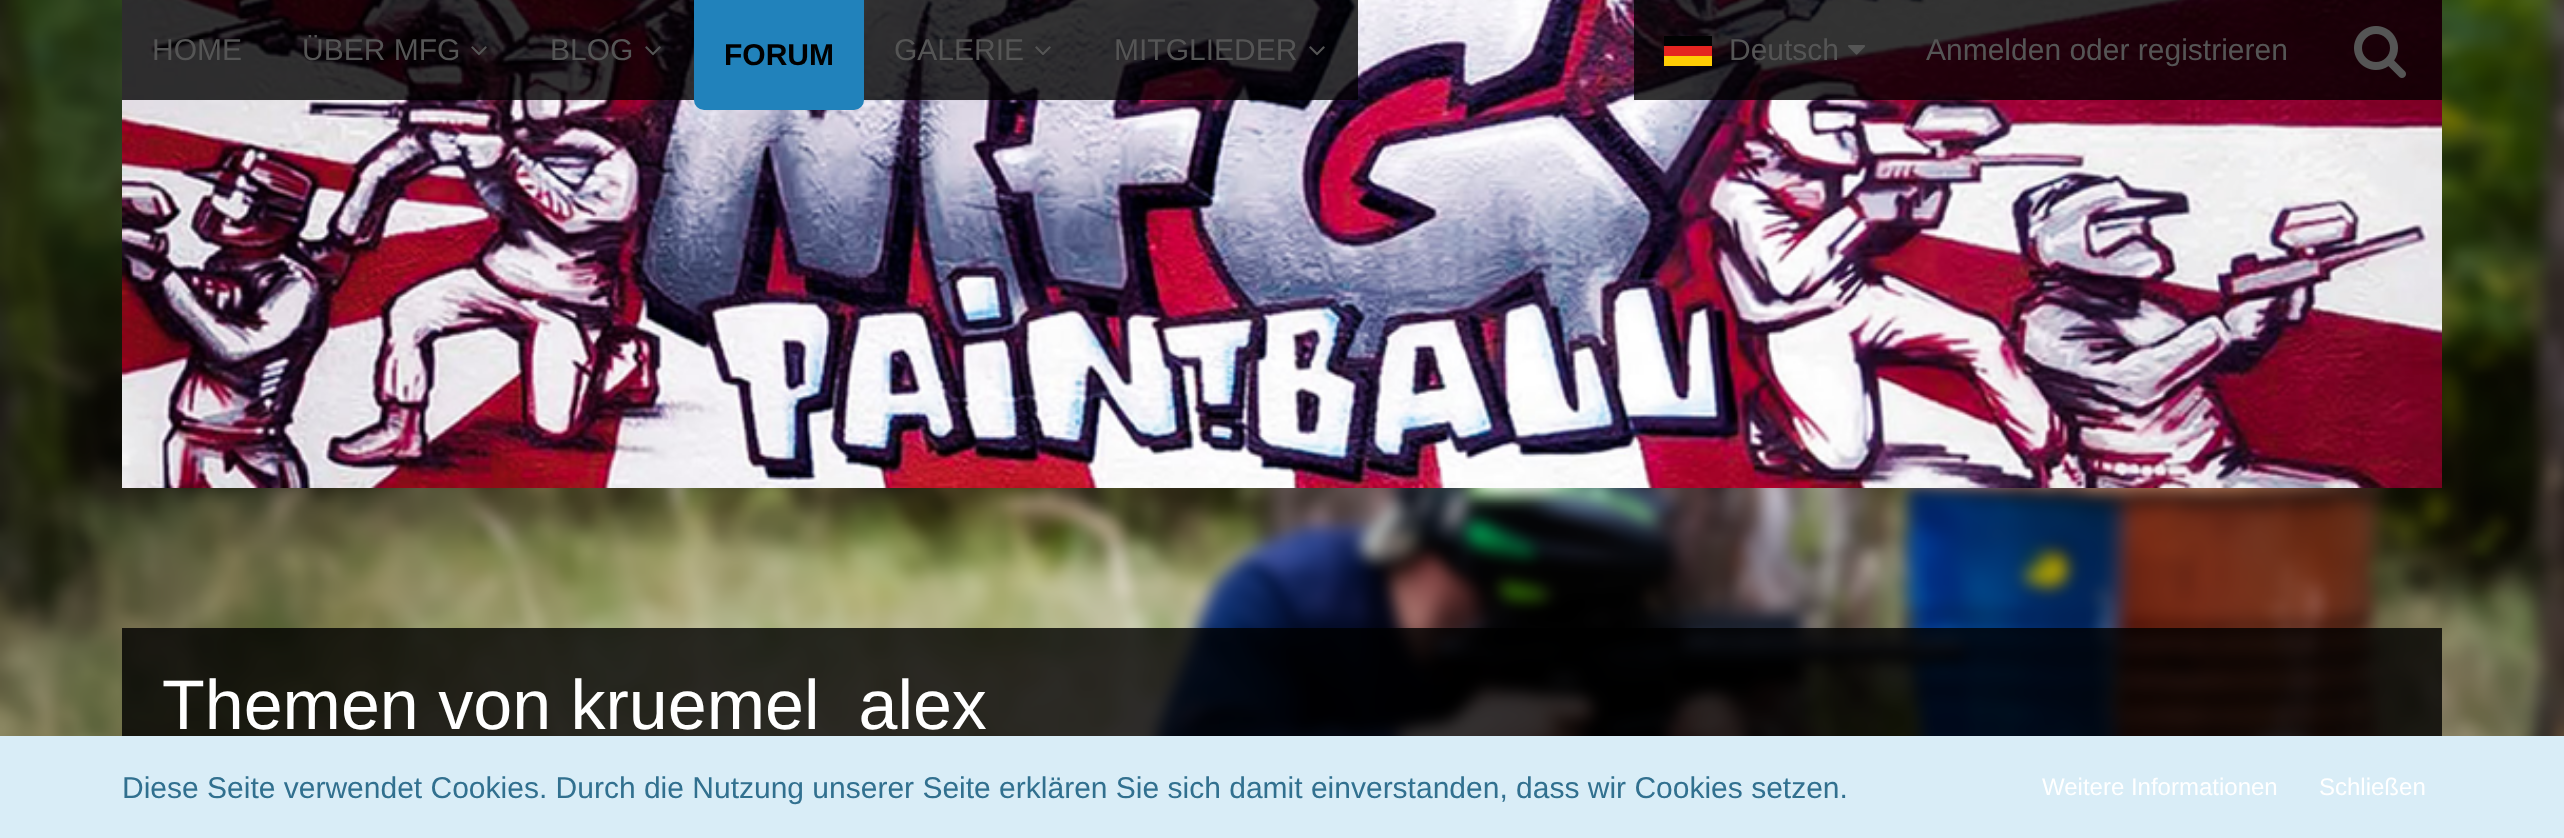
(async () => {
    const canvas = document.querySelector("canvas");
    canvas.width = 2564;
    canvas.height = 838;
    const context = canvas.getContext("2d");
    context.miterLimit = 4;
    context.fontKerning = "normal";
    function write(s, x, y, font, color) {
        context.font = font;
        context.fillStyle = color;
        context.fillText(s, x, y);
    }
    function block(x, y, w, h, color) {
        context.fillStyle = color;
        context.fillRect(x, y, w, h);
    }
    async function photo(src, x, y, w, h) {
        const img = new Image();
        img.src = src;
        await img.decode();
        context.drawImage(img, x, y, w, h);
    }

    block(0, 0, 2564, 838, "rgb(255, 255, 255)");
    await photo("media/1.png", 0, 0, 2564, 736);
    await photo("media/2.png", 122, 0, 2320, 488);
    block(122, 0, 150, 100, "rgba(0, 0, 0, 0.8)");
    write("HOME", 152, 60, "30px Liberation Sans", "rgb(85, 85, 85)");
    block(272, 0, 248, 100, "rgba(0, 0, 0, 0.8)");
    write("ÜBER MFG", 302, 60, "30px Liberation Sans", "rgb(85, 85, 85)");
    await photo("media/3.png", 471, 46, 16, 10);
    block(520, 0, 174, 100, "rgba(0, 0, 0, 0.8)");
    write("BLOG", 550, 60, "30px Liberation Sans", "rgb(85, 85, 85)");
    await photo("media/4.png", 645, 46, 16, 10);
    context.fillStyle = "rgb(33, 130, 187)";
    context.beginPath();
    context.roundRect(694, 0, 170, 110, [0, 0, 10, 10]);
    context.fill();
    write("FORUM", 724, 65, "bold 30px Liberation Sans", "rgb(0, 0, 0)");
    block(864, 0, 220, 100, "rgba(0, 0, 0, 0.8)");
    write("GALERIE", 894, 60, "30px Liberation Sans", "rgb(85, 85, 85)");
    await photo("media/5.png", 1035, 46, 16, 9);
    block(1084, 0, 274, 100, "rgba(0, 0, 0, 0.8)");
    write("MITGLIEDER", 1114, 60, "30px Liberation Sans", "rgb(85, 85, 85)");
    await photo("media/6.png", 1309, 46, 16, 10);
    block(1634, 0, 262, 100, "rgba(0, 0, 0, 0.8)");
    block(1664, 36, 48, 10, "rgb(1, 2, 2)");
    block(1664, 56, 48, 10, "rgb(255, 204, 4)");
    block(1664, 46, 48, 10, "rgb(229, 36, 32)");
    write("Deutsch", 1729, 60, "30px Liberation Sans", "rgb(85, 85, 85)");
    await photo("media/7.png", 1848, 45, 17, 10);
    block(1896, 0, 422, 100, "rgba(0, 0, 0, 0.8)");
    write("Anmelden oder registrieren", 1926, 60, "30px Liberation Sans", "rgb(85, 85, 85)");
    block(2318, 0, 124, 100, "rgba(0, 0, 0, 0.8)");
    await photo("media/8.png", 2354, 26, 52, 52);
    block(122, 628, 2320, 108, "rgba(0, 0, 0, 0.8)");
    write("Themen von kruemel_alex", 162, 729, "70px Liberation Sans", "rgb(255, 255, 255)");
    block(0, 736, 2564, 102, "rgb(217, 237, 247)");
    write("Diese Seite verwendet Cookies. Durch die Nutzung unserer Seite erklären Sie sich damit einverstanden, dass wir Cookies setzen.", 122, 798, "30px Liberation Sans", "rgb(49, 112, 143)");
    write("Weitere Informationen", 2042, 795, "24px Liberation Sans", "rgb(255, 255, 255)");
    write("Schließen", 2319, 795, "24px Liberation Sans", "rgb(255, 255, 255)");
})();
